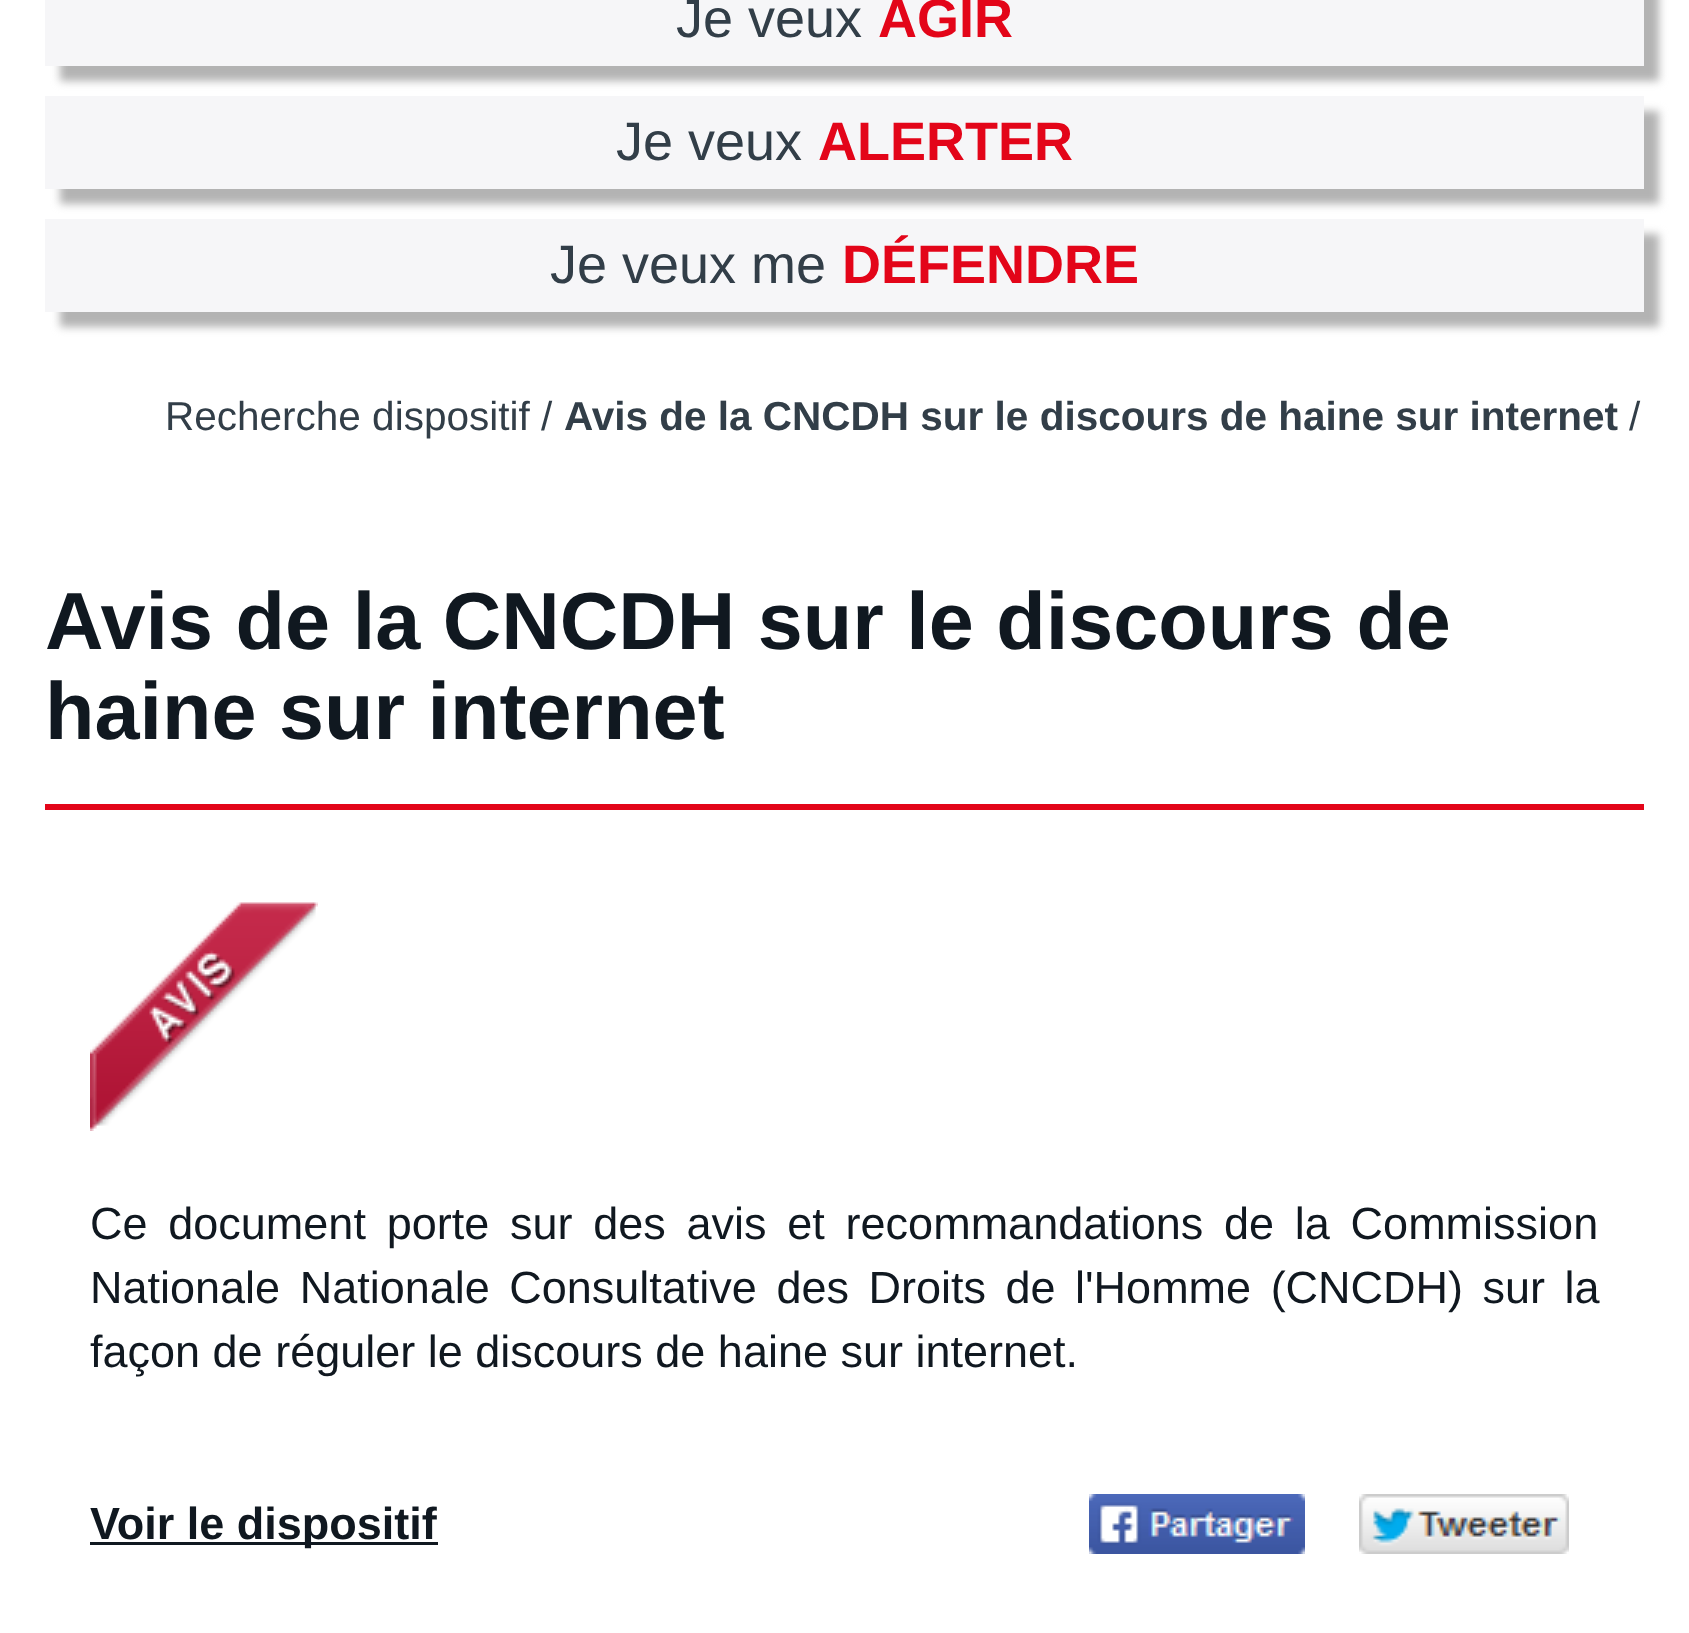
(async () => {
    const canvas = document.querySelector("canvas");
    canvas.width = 1689;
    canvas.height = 1633;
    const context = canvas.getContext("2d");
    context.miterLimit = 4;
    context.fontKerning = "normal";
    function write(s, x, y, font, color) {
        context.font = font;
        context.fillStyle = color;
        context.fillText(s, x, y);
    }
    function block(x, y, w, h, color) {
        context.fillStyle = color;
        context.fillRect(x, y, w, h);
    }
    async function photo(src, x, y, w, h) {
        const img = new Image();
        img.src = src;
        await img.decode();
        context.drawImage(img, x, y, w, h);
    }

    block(0, 0, 1689, 1633, "rgb(255, 255, 255)");
    context.fillStyle = "rgb(179, 179, 179)";
    context.filter = "blur(4.5px)";
    context.beginPath();
    context.rect(60, -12, 1599, 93);
    context.fill();
    context.filter = "none";
    block(45, 0, 1599, 66, "rgb(246, 246, 248)");
    write("Je veux", 676, 37, "54px Liberation Sans", "rgb(50, 62, 72)");
    write("AGIR", 878, 37, "bold 54px Liberation Sans", "rgb(227, 5, 25)");
    context.fillStyle = "rgb(179, 179, 179)";
    context.filter = "blur(4.5px)";
    context.beginPath();
    context.rect(60, 111, 1599, 93);
    context.fill();
    context.filter = "none";
    block(45, 96, 1599, 93, "rgb(246, 246, 248)");
    write("Je veux", 616, 160, "54px Liberation Sans", "rgb(50, 62, 72)");
    write("ALERTER", 818, 160, "bold 54px Liberation Sans", "rgb(227, 5, 25)");
    context.fillStyle = "rgb(179, 179, 179)";
    context.filter = "blur(4.5px)";
    context.beginPath();
    context.rect(60, 234, 1599, 93);
    context.fill();
    context.filter = "none";
    block(45, 219, 1599, 93, "rgb(246, 246, 248)");
    write("Je veux me", 550, 283, "54px Liberation Sans", "rgb(50, 62, 72)");
    write("DÉFENDRE", 842, 283, "bold 54px Liberation Sans", "rgb(227, 5, 25)");
    write("Recherche dispositif /", 165, 430, "40.5px Liberation Sans", "rgb(50, 62, 72)");
    write("Avis de la CNCDH sur le discours de haine sur internet", 564, 430, "bold 40.5px Liberation Sans", "rgb(50, 62, 72)");
    write("/", 1629, 430, "40.5px Liberation Sans", "rgb(50, 62, 72)");
    block(45, 804, 1599, 6, "rgb(227, 5, 25)");
    write("Avis de la CNCDH sur le discours de", 45, 649, "bold 81px Liberation Sans", "rgb(16, 24, 32)");
    write("haine sur internet", 45, 739, "bold 81px Liberation Sans", "rgb(16, 24, 32)");
    await photo("media/1.png", 90, 902, 228, 229);
    context.wordSpacing = "8.25px";
    write("Ce document porte sur des avis et recommandations de la Commission", 90, 1239, "45px Liberation Sans", "rgb(16, 24, 32)");
    context.wordSpacing = "7px";
    write("Nationale Nationale Consultative des Droits de l'Homme (CNCDH) sur la", 90, 1303, "45px Liberation Sans", "rgb(16, 24, 32)");
    context.wordSpacing = "0px";
    write("façon de réguler le discours de haine sur internet.", 90, 1367, "45px Liberation Sans", "rgb(16, 24, 32)");
    block(90, 1542, 348, 3, "rgb(16, 24, 32)");
    write("Voir le dispositif", 90, 1539, "bold 45px Liberation Sans", "rgb(16, 24, 32)");
    await photo("media/2.png", 1089, 1494, 216, 60);
    await photo("media/3.png", 1359, 1494, 210, 60);
})();
